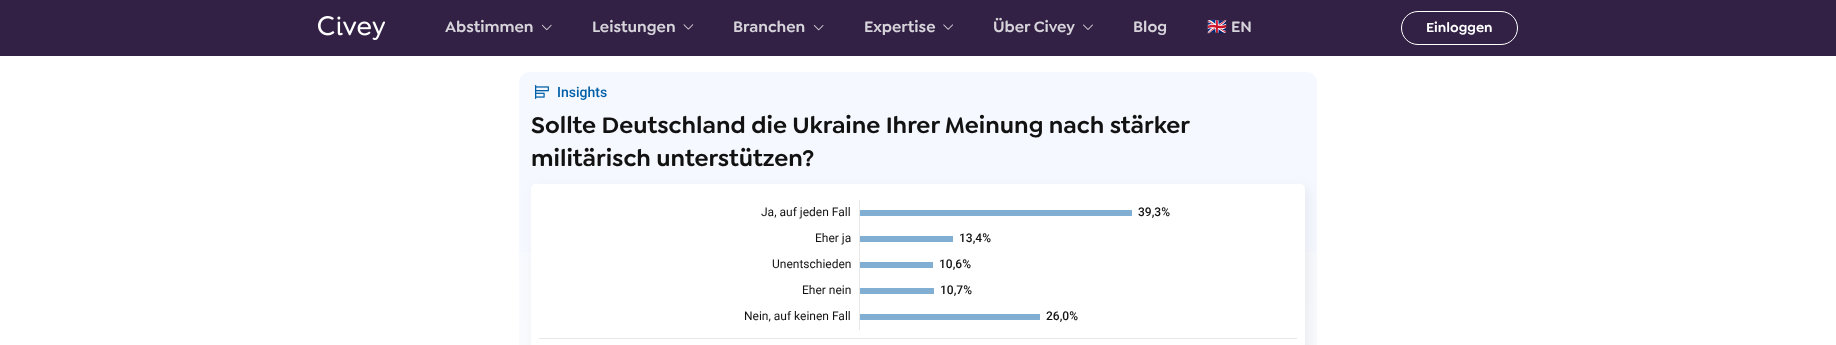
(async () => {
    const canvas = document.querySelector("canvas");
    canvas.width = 1836;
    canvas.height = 345;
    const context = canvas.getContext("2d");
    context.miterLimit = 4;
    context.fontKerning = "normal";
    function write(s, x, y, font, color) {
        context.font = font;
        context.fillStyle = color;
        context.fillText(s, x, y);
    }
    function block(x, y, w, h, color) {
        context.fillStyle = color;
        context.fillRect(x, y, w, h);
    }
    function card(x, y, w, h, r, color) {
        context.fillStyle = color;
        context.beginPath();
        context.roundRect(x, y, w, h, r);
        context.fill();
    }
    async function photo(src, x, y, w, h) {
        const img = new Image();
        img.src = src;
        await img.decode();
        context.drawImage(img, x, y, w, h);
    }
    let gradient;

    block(0, 0, 1836, 345, "rgb(255, 255, 255)");
    block(0, 0, 1836, 56, "rgb(50, 33, 69)");
    await photo("media/1.png", 318, 16, 67, 24);
    write("Abstimmen", 445, 32, "600 16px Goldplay", "rgb(214, 211, 218)");
    await photo("media/2.png", 542, 24, 10, 7);
    write("Leistungen", 592, 32, "600 16px Goldplay", "rgb(214, 211, 218)");
    await photo("media/3.png", 683, 24, 11, 6);
    write("Branchen", 733, 32, "600 16px Goldplay", "rgb(214, 211, 218)");
    await photo("media/4.png", 813, 24, 11, 7);
    write("Expertise", 864, 32, "600 16px Goldplay", "rgb(214, 211, 218)");
    await photo("media/5.png", 943, 24, 10, 6);
    write("Über Civey", 993, 32, "600 16px Goldplay", "rgb(214, 211, 218)");
    await photo("media/6.png", 1083, 24, 10, 6);
    write("Blog", 1133, 32, "600 16px Goldplay", "rgb(214, 211, 218)");
    write("🇬🇧", 1207, 32, "16px Noto Color Emoji", "rgb(214, 211, 218)");
    write("EN", 1231, 32, "600 16px Goldplay", "rgb(214, 211, 218)");
    context.beginPath();
    context.roundRect(1401.5, 11.5, 116, 33, 16.5);
    context.strokeStyle = "rgb(255, 255, 255)";
    context.stroke();
    write("Einloggen", 1426, 32, "600 14px Goldplay", "rgb(255, 255, 255)");
    card(519, 72, 798, 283, 10, "rgb(245, 249, 255)");
    gradient = context.createLinearGradient(918, 72, 918, 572);
    gradient.addColorStop(0, "rgba(251, 251, 251, 0)");
    gradient.addColorStop(1, "rgb(251, 251, 251)");
    context.fillStyle = gradient;
    context.fillRect(519, 252, 798, 93);
    await photo("media/7.png", 535, 85, 14, 14);
    write("Insights", 557, 97, "500 14px Roboto", "rgb(0, 95, 167)");
    write("Sollte Deutschland die Ukraine Ihrer Meinung nach stärker", 531, 133, "600 24px Goldplay", "rgb(18, 18, 18)");
    write("militärisch unterstützen?", 531, 166, "600 24px Goldplay", "rgb(18, 18, 18)");
    context.fillStyle = "rgba(117, 117, 117, 0.1)";
    context.filter = "blur(6px)";
    context.beginPath();
    context.roundRect(535, 188, 774, 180, 5);
    context.fill();
    context.filter = "none";
    card(531, 184, 774, 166, 5, "rgb(255, 255, 255)");
    write("Ja, auf jeden Fall", 761, 216, "12px Roboto", "rgb(18, 18, 18)");
    block(859, 200, 1, 130, "rgb(229, 231, 233)");
    block(860, 210, 272, 6, "rgb(128, 175, 211)");
    write("39,3%", 1138, 216, "500 12px Roboto", "rgb(18, 18, 18)");
    write("Eher ja", 815, 242, "12px Roboto", "rgb(18, 18, 18)");
    block(860, 236, 93, 6, "rgb(128, 175, 211)");
    write("13,4%", 959, 242, "500 12px Roboto", "rgb(18, 18, 18)");
    write("Unentschieden", 772, 268, "12px Roboto", "rgb(18, 18, 18)");
    block(860, 262, 73, 6, "rgb(128, 175, 211)");
    write("10,6%", 939, 268, "500 12px Roboto", "rgb(18, 18, 18)");
    write("Eher nein", 802, 294, "12px Roboto", "rgb(18, 18, 18)");
    block(860, 288, 74, 6, "rgb(128, 175, 211)");
    write("10,7%", 940, 294, "500 12px Roboto", "rgb(18, 18, 18)");
    write("Nein, auf keinen Fall", 744, 320, "12px Roboto", "rgb(18, 18, 18)");
    block(860, 314, 180, 6, "rgb(128, 175, 211)");
    write("26,0%", 1046, 320, "500 12px Roboto", "rgb(18, 18, 18)");
    block(539, 338, 758, 1, "rgb(229, 231, 233)");
})();
